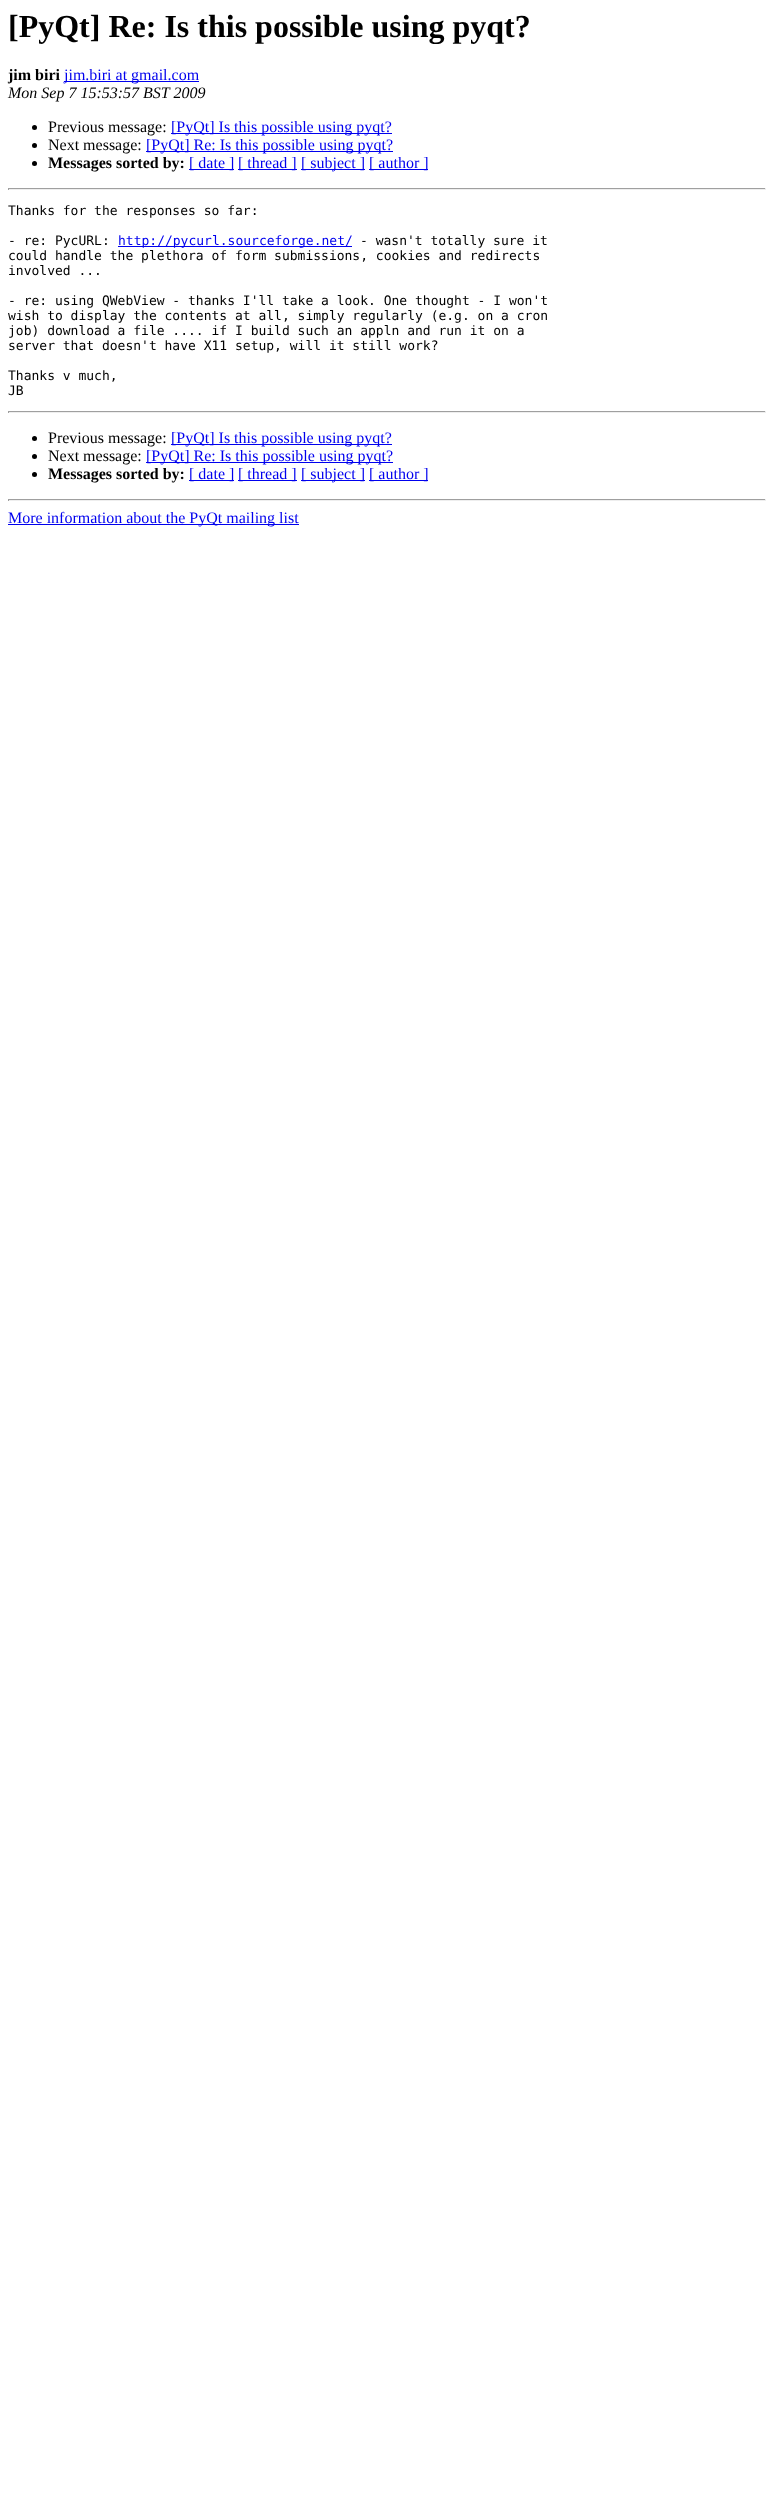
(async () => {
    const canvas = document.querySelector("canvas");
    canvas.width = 774;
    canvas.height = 2497;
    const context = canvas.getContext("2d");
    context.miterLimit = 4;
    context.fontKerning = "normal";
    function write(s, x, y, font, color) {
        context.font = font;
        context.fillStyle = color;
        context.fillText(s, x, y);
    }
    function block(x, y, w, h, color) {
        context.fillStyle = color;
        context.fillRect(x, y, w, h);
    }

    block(0, 0, 774, 2497, "rgb(255, 255, 255)");
    write("[PyQt] Re: Is this possible using pyqt?", 8, 37, "bold 32px Liberation Serif", "rgb(0, 0, 0)");
    write("jim biri", 8, 80, "bold 16px Liberation Serif", "rgb(0, 0, 0)");
    block(64, 81, 135, 1, "rgb(0, 0, 238)");
    write("jim.biri at gmail.com", 64, 80, "16px Liberation Serif", "rgb(0, 0, 238)");
    write("Mon Sep 7 15:53:57 BST 2009", 8, 98, "italic 16px Liberation Serif", "rgb(0, 0, 0)");
    context.beginPath();
    context.arc(34.5, 127.5, 2.5, 0, Math.PI * 2);
    context.fill();
    write("Previous message:", 48, 132, "16px Liberation Serif", "rgb(0, 0, 0)");
    block(171, 133, 221, 1, "rgb(0, 0, 238)");
    write("[PyQt] Is this possible using pyqt?", 171, 132, "16px Liberation Serif", "rgb(0, 0, 238)");
    context.fillStyle = "rgb(0, 0, 0)";
    context.beginPath();
    context.arc(34.5, 145.5, 2.5, 0, Math.PI * 2);
    context.fill();
    write("Next message:", 48, 150, "16px Liberation Serif", "rgb(0, 0, 0)");
    block(146, 151, 247, 1, "rgb(0, 0, 238)");
    write("[PyQt] Re: Is this possible using pyqt?", 146, 150, "16px Liberation Serif", "rgb(0, 0, 238)");
    context.fillStyle = "rgb(0, 0, 0)";
    context.beginPath();
    context.arc(34.5, 163.5, 2.5, 0, Math.PI * 2);
    context.fill();
    write("Messages sorted by:", 48, 168, "bold 16px Liberation Serif", "rgb(0, 0, 0)");
    block(189, 169, 45, 1, "rgb(0, 0, 238)");
    write("[ date ]", 189, 168, "16px Liberation Serif", "rgb(0, 0, 238)");
    block(238, 169, 59, 1, "rgb(0, 0, 238)");
    write("[ thread ]", 238, 168, "16px Liberation Serif", "rgb(0, 0, 238)");
    block(301, 169, 64, 1, "rgb(0, 0, 238)");
    write("[ subject ]", 301, 168, "16px Liberation Serif", "rgb(0, 0, 238)");
    block(369, 169, 59, 1, "rgb(0, 0, 238)");
    write("[ author ]", 369, 168, "16px Liberation Serif", "rgb(0, 0, 238)");
    block(8, 188, 758, 1, "rgb(159, 159, 159)");
    block(765, 188, 1, 2, "rgb(238, 238, 238)");
    block(8, 189, 758, 1, "rgb(238, 238, 238)");
    block(8, 188, 1, 2, "rgb(159, 159, 159)");
    write("Thanks for the responses so far:", 8, 215, "13px DejaVu Sans Mono", "rgb(0, 0, 0)");
    write("- re: PycURL:", 8, 245, "13px DejaVu Sans Mono", "rgb(0, 0, 0)");
    block(118, 246, 234, 1, "rgb(0, 0, 238)");
    write("http://pycurl.sourceforge.net/", 118, 245, "13px DejaVu Sans Mono", "rgb(0, 0, 238)");
    write("- wasn't totally sure it", 360, 245, "13px DejaVu Sans Mono", "rgb(0, 0, 0)");
    write("could handle the plethora of form submissions, cookies and redirects", 8, 260, "13px DejaVu Sans Mono", "rgb(0, 0, 0)");
    write("involved ...", 8, 275, "13px DejaVu Sans Mono", "rgb(0, 0, 0)");
    write("- re: using QWebView - thanks I'll take a look. One thought - I won't", 8, 305, "13px DejaVu Sans Mono", "rgb(0, 0, 0)");
    write("wish to display the contents at all, simply regularly (e.g. on a cron", 8, 320, "13px DejaVu Sans Mono", "rgb(0, 0, 0)");
    write("job) download a file .... if I build such an appln and run it on a", 8, 335, "13px DejaVu Sans Mono", "rgb(0, 0, 0)");
    write("server that doesn't have X11 setup, will it still work?", 8, 350, "13px DejaVu Sans Mono", "rgb(0, 0, 0)");
    write("Thanks v much,", 8, 380, "13px DejaVu Sans Mono", "rgb(0, 0, 0)");
    write("JB", 8, 395, "13px DejaVu Sans Mono", "rgb(0, 0, 0)");
    block(8, 411, 758, 1, "rgb(159, 159, 159)");
    block(765, 411, 1, 2, "rgb(238, 238, 238)");
    block(8, 412, 758, 1, "rgb(238, 238, 238)");
    block(8, 411, 1, 2, "rgb(159, 159, 159)");
    context.fillStyle = "rgb(0, 0, 0)";
    context.beginPath();
    context.arc(34.5, 438.5, 2.5, 0, Math.PI * 2);
    context.fill();
    write("Previous message:", 48, 443, "16px Liberation Serif", "rgb(0, 0, 0)");
    block(171, 444, 221, 1, "rgb(0, 0, 238)");
    write("[PyQt] Is this possible using pyqt?", 171, 443, "16px Liberation Serif", "rgb(0, 0, 238)");
    context.fillStyle = "rgb(0, 0, 0)";
    context.beginPath();
    context.arc(34.5, 456.5, 2.5, 0, Math.PI * 2);
    context.fill();
    write("Next message:", 48, 461, "16px Liberation Serif", "rgb(0, 0, 0)");
    block(146, 462, 247, 1, "rgb(0, 0, 238)");
    write("[PyQt] Re: Is this possible using pyqt?", 146, 461, "16px Liberation Serif", "rgb(0, 0, 238)");
    context.fillStyle = "rgb(0, 0, 0)";
    context.beginPath();
    context.arc(34.5, 474.5, 2.5, 0, Math.PI * 2);
    context.fill();
    write("Messages sorted by:", 48, 479, "bold 16px Liberation Serif", "rgb(0, 0, 0)");
    block(189, 480, 45, 1, "rgb(0, 0, 238)");
    write("[ date ]", 189, 479, "16px Liberation Serif", "rgb(0, 0, 238)");
    block(238, 480, 59, 1, "rgb(0, 0, 238)");
    write("[ thread ]", 238, 479, "16px Liberation Serif", "rgb(0, 0, 238)");
    block(301, 480, 64, 1, "rgb(0, 0, 238)");
    write("[ subject ]", 301, 479, "16px Liberation Serif", "rgb(0, 0, 238)");
    block(369, 480, 59, 1, "rgb(0, 0, 238)");
    write("[ author ]", 369, 479, "16px Liberation Serif", "rgb(0, 0, 238)");
    block(8, 499, 758, 1, "rgb(159, 159, 159)");
    block(765, 499, 1, 2, "rgb(238, 238, 238)");
    block(8, 500, 758, 1, "rgb(238, 238, 238)");
    block(8, 499, 1, 2, "rgb(159, 159, 159)");
    block(8, 524, 291, 1, "rgb(0, 0, 238)");
    write("More information about the PyQt mailing list", 8, 523, "16px Liberation Serif", "rgb(0, 0, 238)");
})();
